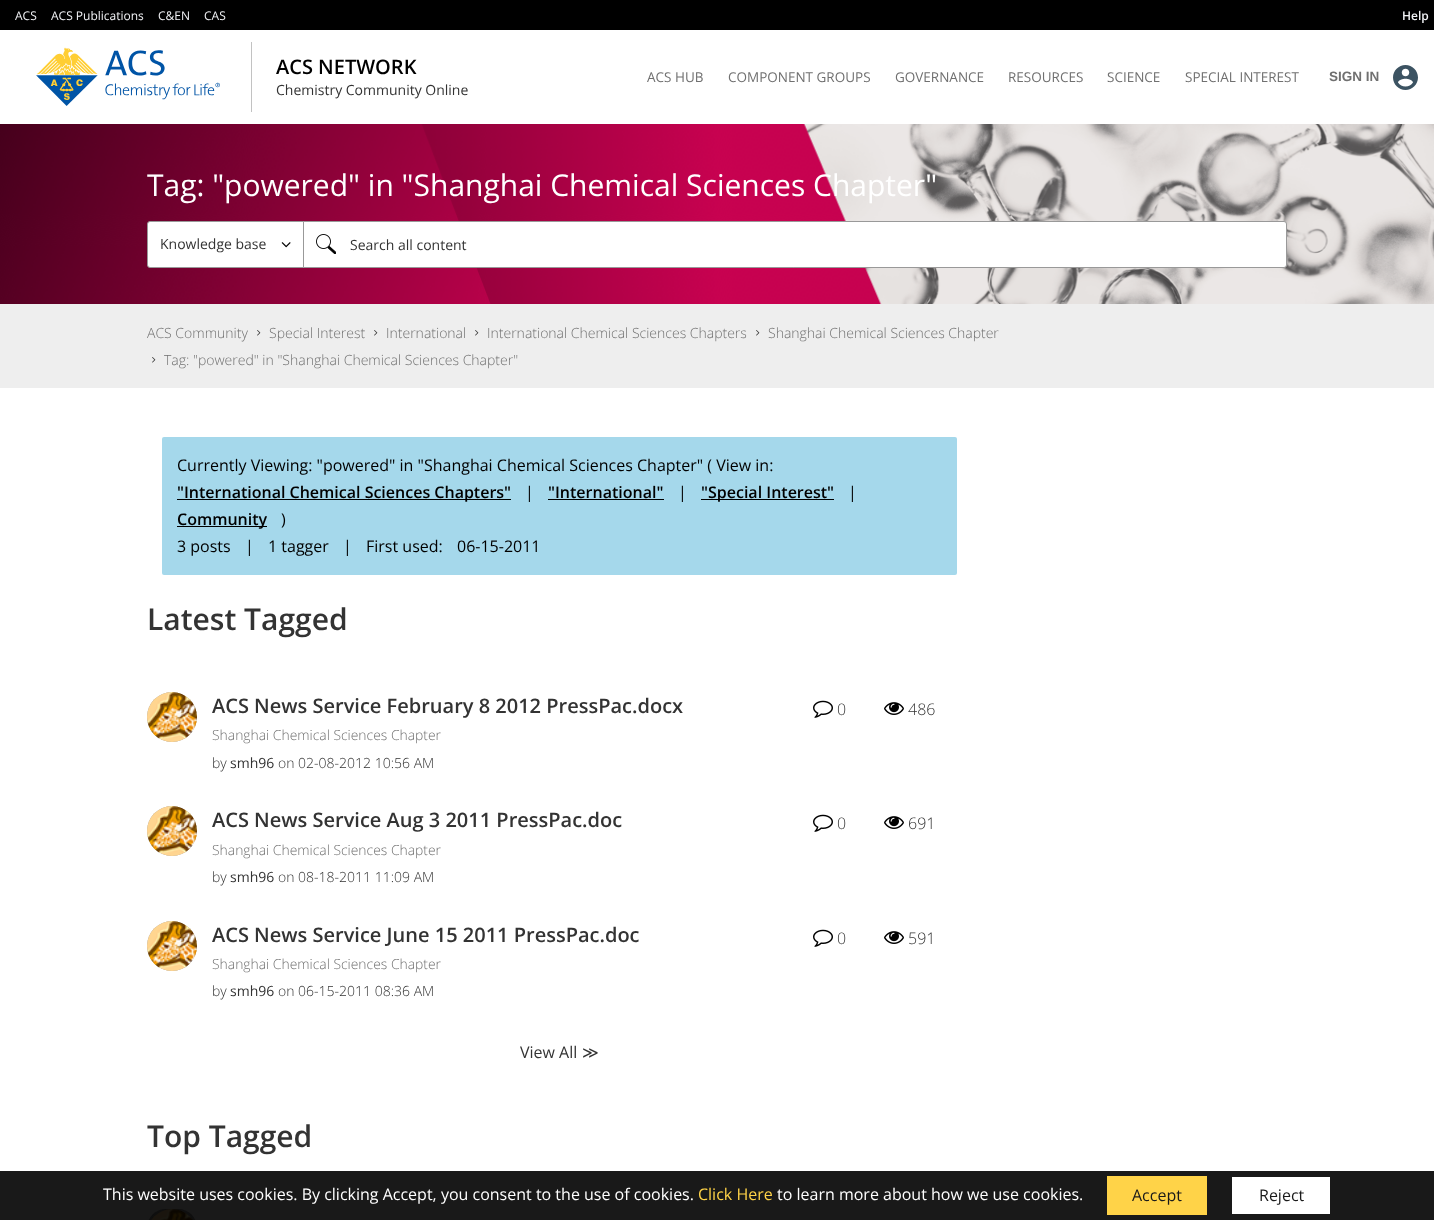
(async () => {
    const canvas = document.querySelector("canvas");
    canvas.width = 1434;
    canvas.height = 1220;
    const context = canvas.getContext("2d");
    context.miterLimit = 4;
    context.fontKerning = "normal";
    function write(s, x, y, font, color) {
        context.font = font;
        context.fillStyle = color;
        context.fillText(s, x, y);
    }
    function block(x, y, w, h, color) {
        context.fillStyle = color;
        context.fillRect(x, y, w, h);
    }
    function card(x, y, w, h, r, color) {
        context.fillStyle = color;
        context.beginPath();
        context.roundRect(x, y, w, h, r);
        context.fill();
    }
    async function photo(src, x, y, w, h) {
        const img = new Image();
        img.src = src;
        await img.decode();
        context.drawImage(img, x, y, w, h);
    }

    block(0, 0, 1434, 1220, "rgb(255, 255, 255)");
    block(0, 1171, 1434, 49, "rgb(25, 25, 25)");
    block(0, 0, 1434, 30, "rgb(0, 0, 0)");
    write("ACS", 15, 20, "12px Open Sans", "rgb(242, 243, 246)");
    write("ACS Publications", 51, 20, "12px Open Sans", "rgb(242, 243, 246)");
    write("C&EN", 158, 20, "12px Open Sans", "rgb(242, 243, 246)");
    write("CAS", 204, 20, "12px Open Sans", "rgb(242, 243, 246)");
    write("Help", 1402, 20, "600 12px Open Sans", "rgb(242, 243, 246)");
    block(251, 42, 1, 70, "rgb(194, 194, 194)");
    await photo("media/1.png", 36, 47, 184, 59);
    write("ACS NETWORK", 276, 74, "600 20px Open Sans", "rgb(0, 0, 0)");
    write("Chemistry Community Online", 276, 95, "14px Open Sans", "rgb(51, 51, 51)");
    write("ACS HUB", 647, 82, "13.5px Open Sans", "rgb(112, 112, 112)");
    write("COMPONENT GROUPS", 728, 82, "13.5px Open Sans", "rgb(112, 112, 112)");
    write("GOVERNANCE", 895, 82, "13.5px Open Sans", "rgb(112, 112, 112)");
    write("RESOURCES", 1008, 82, "13.5px Open Sans", "rgb(112, 112, 112)");
    write("SCIENCE", 1107, 82, "13.5px Open Sans", "rgb(112, 112, 112)");
    write("SPECIAL INTEREST", 1185, 82, "13.5px Open Sans", "rgb(112, 112, 112)");
    write("SIGN IN", 1329, 81, "bold 13.5px Liberation Sans", "rgb(112, 112, 112)");
    await photo("media/2.png", 1393, 65, 25, 25);
    await photo("media/3.png", 0, 124, 1434, 180);
    write("Tag: \"powered\" in \"Shanghai Chemical Sciences Chapter\"", 147, 196, "30px Open Sans", "rgb(255, 255, 255)");
    context.beginPath();
    context.roundRect(303.5, 221.5, 983, 46, [0, 2.5, 2.5, 0]);
    context.fill();
    context.strokeStyle = "rgb(153, 153, 153)";
    context.stroke();
    context.beginPath();
    context.roundRect(147.5, 221.5, 156, 46, [2.5, 0, 0, 2.5]);
    context.fill();
    context.stroke();
    write("Knowledge base", 160, 249, "14px Open Sans", "rgb(51, 51, 51)");
    await photo("media/4.png", 281, 242, 10, 6);
    await photo("media/5.png", 316, 234, 20, 20);
    write("Search all content", 350, 250, "14px Open Sans", "rgb(51, 51, 51)");
    block(0, 304, 1434, 84, "rgb(238, 238, 238)");
    write("ACS Community", 147, 338, "300 14px Open Sans", "rgb(112, 112, 112)");
    await photo("media/6.png", 257, 330, 4, 6);
    write("Special Interest", 269, 338, "300 14px Open Sans", "rgb(112, 112, 112)");
    await photo("media/6.png", 374, 330, 4, 6);
    write("International", 386, 338, "300 14px Open Sans", "rgb(112, 112, 112)");
    await photo("media/6.png", 475, 330, 4, 6);
    write("International Chemical Sciences Chapters", 487, 338, "300 14px Open Sans", "rgb(112, 112, 112)");
    await photo("media/6.png", 756, 330, 4, 6);
    write("Shanghai Chemical Sciences Chapter", 768, 338, "300 14px Open Sans", "rgb(112, 112, 112)");
    await photo("media/6.png", 152, 357, 4, 6);
    write("Tag: \"powered\" in \"Shanghai Chemical Sciences Chapter\"", 164, 365, "300 14px Open Sans", "rgb(112, 112, 112)");
    card(162, 437, 795, 138, 2, "rgb(165, 216, 235)");
    write("Currently Viewing: \"powered\" in \"Shanghai Chemical Sciences Chapter\" ( View in:", 177, 471, "16px Open Sans", "rgb(0, 0, 0)");
    block(177, 499, 334, 1, "rgb(0, 0, 0)");
    write("\"International Chemical Sciences Chapters\"", 177, 498, "600 16px Open Sans", "rgb(0, 0, 0)");
    write("|", 525, 498, "16px Open Sans", "rgb(0, 0, 0)");
    write("\"International\"", 548, 498, "600 16px Open Sans", "rgb(0, 0, 0)");
    block(548, 499, 116, 1, "rgb(0, 0, 0)");
    write("|", 678, 498, "16px Open Sans", "rgb(0, 0, 0)");
    block(701, 499, 133, 1, "rgb(0, 0, 0)");
    write("\"Special Interest\"", 701, 498, "600 16px Open Sans", "rgb(0, 0, 0)");
    write("|", 848, 498, "16px Open Sans", "rgb(0, 0, 0)");
    block(177, 526, 90, 1, "rgb(0, 0, 0)");
    write("Community", 177, 525, "600 16px Open Sans", "rgb(0, 0, 0)");
    write(")", 281, 525, "16px Open Sans", "rgb(0, 0, 0)");
    write("3 posts", 177, 552, "16px Open Sans", "rgb(0, 0, 0)");
    write("|", 245, 552, "16px Open Sans", "rgb(0, 0, 0)");
    write("1 tagger", 268, 552, "16px Open Sans", "rgb(0, 0, 0)");
    write("|", 343, 552, "16px Open Sans", "rgb(0, 0, 0)");
    write("First used:", 366, 552, "16px Open Sans", "rgb(0, 0, 0)");
    write("06-15-2011", 457, 552, "16px Open Sans", "rgb(0, 0, 0)");
    write("Latest Tagged", 147, 630, "600 30px Open Sans", "rgb(51, 51, 51)");
    context.fillStyle = "rgb(153, 153, 153)";
    context.filter = "blur(0.5px)";
    context.beginPath();
    context.roundRect(147, 692, 50, 50, 25);
    context.fill();
    context.filter = "none";
    await photo("media/7.png", 147, 692, 50, 50);
    write("ACS News Service February 8 2012 PressPac.docx", 212, 713, "600 20px Open Sans", "rgb(51, 51, 51)");
    write("Shanghai Chemical Sciences Chapter", 212, 740, "300 13.9px Open Sans", "rgb(112, 112, 112)");
    write("by", 212, 768, "300 14px Open Sans", "rgb(51, 51, 51)");
    write("smh96", 230, 768, "14px Open Sans", "rgb(51, 51, 51)");
    write("on 02-08-2012 10:56 AM", 278, 768, "300 14px Open Sans", "rgb(51, 51, 51)");
    await photo("media/8.png", 813, 700, 20, 18);
    write("0", 837, 715, "300 16px Open Sans", "rgb(51, 51, 51)");
    await photo("media/9.png", 884, 702, 20, 13);
    write("486", 908, 715, "300 16px Open Sans", "rgb(51, 51, 51)");
    context.fillStyle = "rgb(153, 153, 153)";
    context.filter = "blur(0.5px)";
    context.beginPath();
    context.roundRect(147, 806, 50, 50, 25);
    context.fill();
    context.filter = "none";
    await photo("media/7.png", 147, 806, 50, 50);
    write("ACS News Service Aug 3 2011 PressPac.doc", 212, 827, "600 20px Open Sans", "rgb(51, 51, 51)");
    write("Shanghai Chemical Sciences Chapter", 212, 855, "300 13.9px Open Sans", "rgb(112, 112, 112)");
    write("by", 212, 882, "300 14px Open Sans", "rgb(51, 51, 51)");
    write("smh96", 230, 882, "14px Open Sans", "rgb(51, 51, 51)");
    write("on 08-18-2011 11:09 AM", 278, 882, "300 14px Open Sans", "rgb(51, 51, 51)");
    await photo("media/8.png", 813, 814, 20, 18);
    write("0", 837, 829, "300 16px Open Sans", "rgb(51, 51, 51)");
    await photo("media/9.png", 884, 816, 20, 13);
    write("691", 908, 829, "300 16px Open Sans", "rgb(51, 51, 51)");
    context.fillStyle = "rgb(153, 153, 153)";
    context.filter = "blur(0.5px)";
    context.beginPath();
    context.roundRect(147, 921, 50, 50, 25);
    context.fill();
    context.filter = "none";
    await photo("media/7.png", 147, 921, 50, 50);
    write("ACS News Service June 15 2011 PressPac.doc", 212, 942, "600 20px Open Sans", "rgb(51, 51, 51)");
    write("Shanghai Chemical Sciences Chapter", 212, 969, "300 13.9px Open Sans", "rgb(112, 112, 112)");
    write("by", 212, 996, "300 14px Open Sans", "rgb(51, 51, 51)");
    write("smh96", 230, 996, "14px Open Sans", "rgb(51, 51, 51)");
    write("on 06-15-2011 08:36 AM", 278, 996, "300 14px Open Sans", "rgb(51, 51, 51)");
    await photo("media/8.png", 813, 929, 20, 18);
    write("0", 837, 944, "300 16px Open Sans", "rgb(51, 51, 51)");
    await photo("media/9.png", 884, 931, 20, 13);
    write("591", 908, 944, "300 16px Open Sans", "rgb(51, 51, 51)");
    write("View All", 520, 1058, "16px Open Sans", "rgb(51, 51, 51)");
    write("≫", 582, 1058, "16px DejaVu Sans", "rgb(51, 51, 51)");
    write("Top Tagged", 147, 1147, "600 30px Open Sans", "rgb(51, 51, 51)");
    context.fillStyle = "rgb(15, 15, 15)";
    context.filter = "blur(0.5px)";
    context.beginPath();
    context.roundRect(147, 1209, 50, 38, 25);
    context.fill();
    context.filter = "none";
    await photo("media/10.png", 151, 1209, 42, 11);
    write("This website uses cookies. By clicking Accept, you consent to the use of cookies.", 103, 1200, "16px Open Sans", "rgb(255, 255, 255)");
    write("Click Here", 698, 1200, "16px Open Sans", "rgb(255, 211, 72)");
    write("to learn more about how we use cookies.", 777, 1200, "16px Open Sans", "rgb(255, 255, 255)");
    block(1107, 1176, 100, 39, "rgb(255, 211, 72)");
    write("Accept", 1132, 1201, "16px Open Sans", "rgb(26, 26, 26)");
    block(1232, 1177, 98, 37, "rgb(255, 255, 255)");
    write("Reject", 1259, 1201, "16px Open Sans", "rgb(26, 26, 26)");
})();
